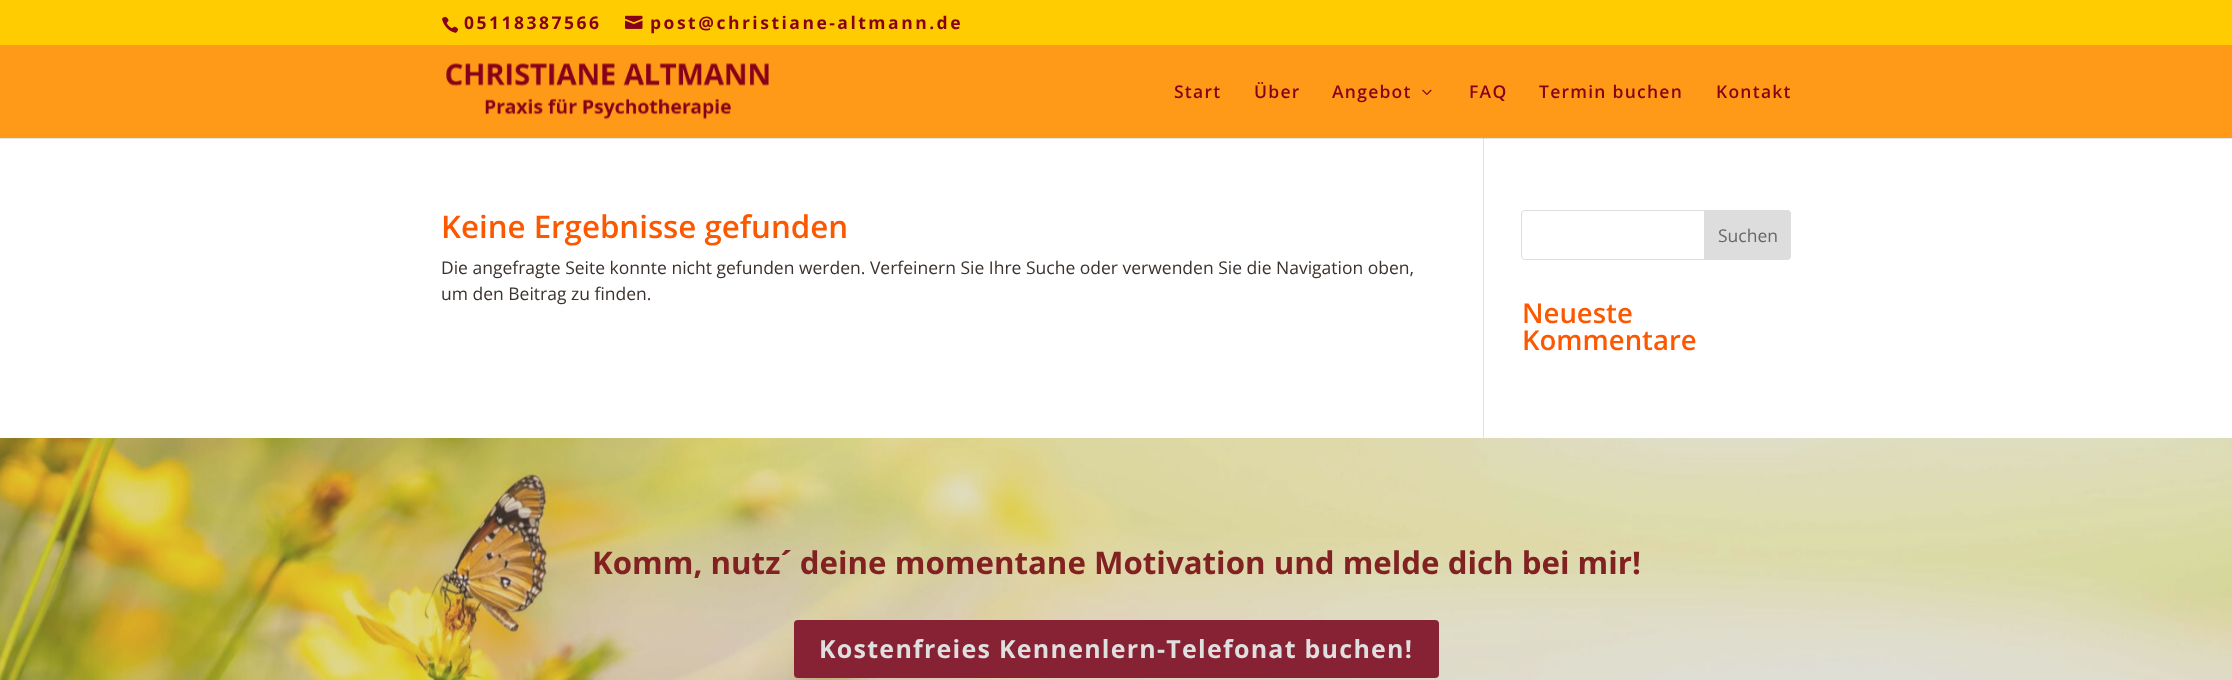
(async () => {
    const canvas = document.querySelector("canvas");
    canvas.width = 2232;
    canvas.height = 680;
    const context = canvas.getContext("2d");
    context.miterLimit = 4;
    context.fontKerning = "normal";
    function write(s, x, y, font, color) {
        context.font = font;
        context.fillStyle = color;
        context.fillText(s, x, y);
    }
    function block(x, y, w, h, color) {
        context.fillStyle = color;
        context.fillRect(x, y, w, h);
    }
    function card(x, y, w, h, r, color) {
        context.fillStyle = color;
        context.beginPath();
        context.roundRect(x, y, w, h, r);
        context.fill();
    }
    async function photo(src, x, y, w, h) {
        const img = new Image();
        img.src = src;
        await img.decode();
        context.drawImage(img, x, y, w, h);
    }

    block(0, 0, 2232, 680, "rgb(255, 255, 255)");
    block(0, 0, 2232, 45, "rgb(254, 204, 0)");
    await photo("media/1.png", 442, 16, 16, 17);
    context.letterSpacing = "2.5px";
    write("05118387566", 464, 29, "bold 17.5px Open Sans", "rgb(135, 1, 26)");
    await photo("media/2.png", 625, 15, 18, 14);
    write("post@christiane-altmann.de", 650, 29, "bold 17.5px Open Sans", "rgb(135, 1, 26)");
    block(1483, 138, 1, 300, "rgb(226, 226, 226)");
    context.fillStyle = "rgba(0, 0, 0, 0.1)";
    context.beginPath();
    context.moveTo(0, 138);
    context.lineTo(0, 139);
    context.lineTo(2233, 139);
    context.lineTo(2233, 46);
    context.lineTo(2232, 46);
    context.lineTo(2232, 138);
    context.closePath();
    context.fill();
    block(0, 45, 2232, 93, "rgb(255, 153, 24)");
    await photo("media/3.png", 446, 63, 323, 57);
    context.letterSpacing = "1.25px";
    write("Start", 1174, 98, "600 17.5px Open Sans", "rgb(135, 1, 26)");
    write("Über", 1254, 98, "600 17.5px Open Sans", "rgb(135, 1, 26)");
    write("Angebot", 1332, 98, "600 17.5px Open Sans", "rgb(135, 1, 26)");
    await photo("media/4.png", 1422, 89, 10, 6);
    write("FAQ", 1469, 98, "600 17.5px Open Sans", "rgb(135, 1, 26)");
    write("Termin buchen", 1539, 98, "600 17.5px Open Sans", "rgb(135, 1, 26)");
    write("Kontakt", 1716, 98, "600 17.5px Open Sans", "rgb(135, 1, 26)");
    context.letterSpacing = "0px";
    write("Keine Ergebnisse gefunden", 441, 238, "600 31.25px Open Sans", "rgb(252, 88, 0)");
    write("Die angefragte Seite konnte nicht gefunden werden. Verfeinern Sie Ihre Suche oder verwenden Sie die Navigation oben,", 441, 274, "17.5px Open Sans", "rgb(59, 50, 45)");
    write("um den Beitrag zu finden.", 441, 300, "17.5px Open Sans", "rgb(59, 50, 45)");
    context.beginPath();
    context.roundRect(1521.5, 210.5, 269, 49, 3.5);
    context.strokeStyle = "rgb(221, 221, 221)";
    context.stroke();
    context.fillStyle = "rgb(221, 221, 221)";
    context.beginPath();
    context.roundRect(1704.5, 210.5, 86, 49, [0, 3.5, 3.5, 0]);
    context.fill();
    context.stroke();
    write("Suchen", 1718, 242, "17.5px Open Sans", "rgb(102, 102, 102)");
    write("Neueste", 1522, 323, "600 27.5px Open Sans", "rgb(252, 88, 0)");
    write("Kommentare", 1522, 350, "600 27.5px Open Sans", "rgb(252, 88, 0)");
    await photo("media/5.png", 0, 438, 2232, 242);
    write("Komm, nutz´ deine momentane Motivation und melde dich bei mir!", 592, 574, "bold 31.25px Open Sans", "rgb(129, 33, 33)");
    card(794, 620, 645, 58, 4, "rgb(135, 33, 52)");
    context.letterSpacing = "1.25px";
    write("Kostenfreies Kennenlern-Telefonat buchen!", 819, 658, "bold 25px Open Sans", "rgb(223, 223, 223)");
})();
